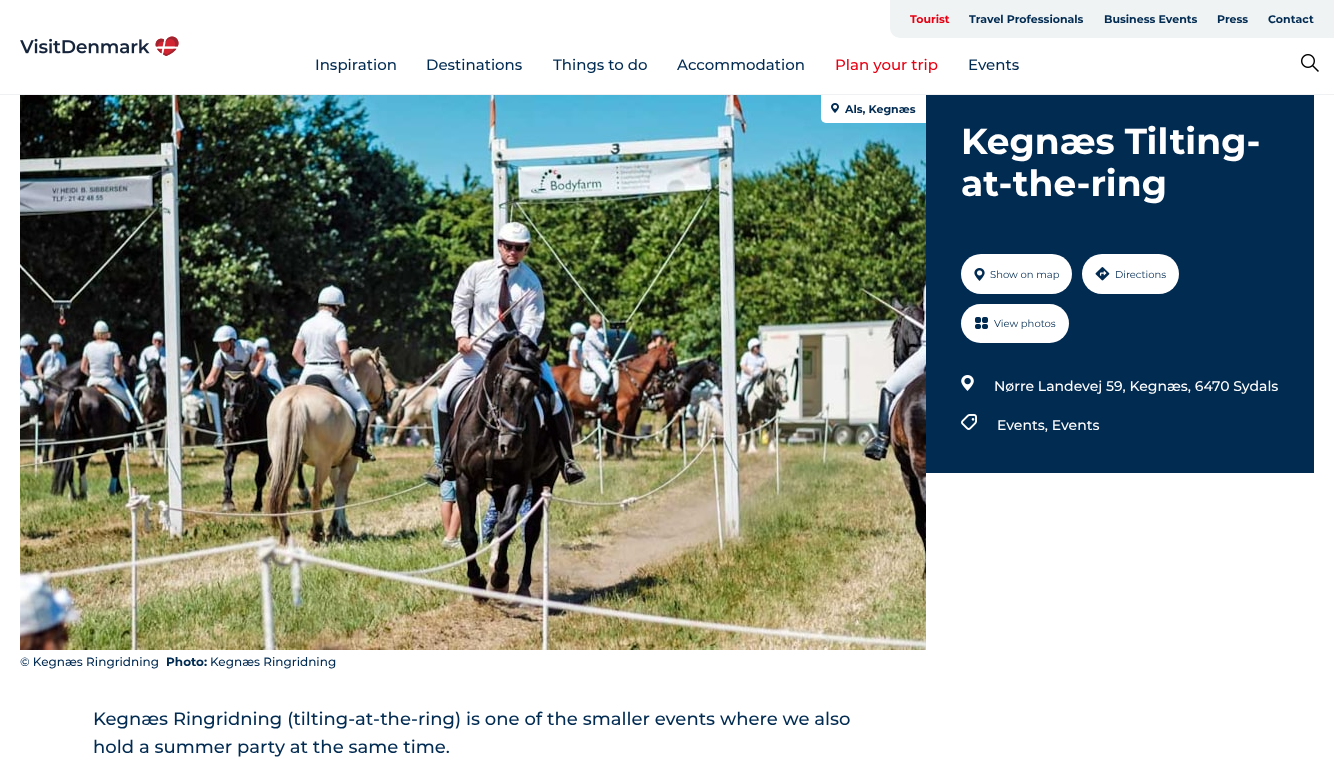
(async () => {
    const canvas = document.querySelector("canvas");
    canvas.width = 1334;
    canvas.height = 783;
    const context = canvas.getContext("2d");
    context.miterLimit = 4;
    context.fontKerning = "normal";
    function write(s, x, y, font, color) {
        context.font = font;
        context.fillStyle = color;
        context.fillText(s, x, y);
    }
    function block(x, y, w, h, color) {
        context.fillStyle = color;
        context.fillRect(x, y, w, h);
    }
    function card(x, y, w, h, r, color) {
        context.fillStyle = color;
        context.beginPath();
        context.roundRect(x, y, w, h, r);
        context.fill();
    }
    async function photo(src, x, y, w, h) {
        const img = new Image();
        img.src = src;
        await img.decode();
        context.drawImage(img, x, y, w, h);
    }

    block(0, 0, 1334, 783, "rgb(255, 255, 255)");
    block(0, 94, 1334, 1, "rgb(240, 241, 243)");
    await photo("media/1.png", 20, 36, 159, 20);
    context.fillStyle = "rgb(239, 243, 244)";
    context.beginPath();
    context.roundRect(890, 0, 444, 38, [0, 0, 0, 10]);
    context.fill();
    write("Tourist", 910, 23, "bold 11px Montserrat", "rgb(231, 0, 19)");
    write("Travel Professionals", 969, 23, "bold 11px Montserrat", "rgb(2, 43, 82)");
    write("Business Events", 1104, 23, "bold 11px Montserrat", "rgb(2, 43, 82)");
    write("Press", 1217, 23, "bold 11px Montserrat", "rgb(2, 43, 82)");
    write("Contact", 1268, 23, "bold 11px Montserrat", "rgb(2, 43, 82)");
    write("Inspiration", 315, 70, "500 15px Montserrat", "rgb(2, 43, 82)");
    write("Destinations", 426, 70, "500 15px Montserrat", "rgb(2, 43, 82)");
    write("Things to do", 553, 70, "500 15px Montserrat", "rgb(2, 43, 82)");
    write("Accommodation", 677, 70, "500 15px Montserrat", "rgb(2, 43, 82)");
    write("Plan your trip", 835, 70, "500 15px Montserrat", "rgb(231, 0, 19)");
    write("Events", 968, 70, "500 15px Montserrat", "rgb(2, 43, 82)");
    await photo("media/2.png", 1301, 54, 18, 18);
    await photo("media/3.png", 20, 95, 906, 555);
    context.fillStyle = "rgb(255, 255, 255)";
    context.beginPath();
    context.roundRect(821, 95, 105, 28, [0, 0, 0, 5]);
    context.fill();
    await photo("media/4.png", 831, 103, 8, 10);
    write("Als, Kegnæs", 845, 113, "bold 11px Montserrat", "rgb(2, 43, 82)");
    write("© Kegnæs Ringridning", 20, 666, "500 12px Montserrat", "rgb(2, 43, 82)");
    write("Photo:", 166, 666, "bold 12px Montserrat", "rgb(2, 43, 82)");
    write("Kegnæs Ringridning", 210, 666, "500 12px Montserrat", "rgb(2, 43, 82)");
    block(926, 95, 388, 378, "rgb(2, 43, 82)");
    write("Kegnæs Tilting-", 961, 154, "bold 36px Montserrat", "rgb(255, 255, 255)");
    write("at-the-ring", 961, 196, "bold 36px Montserrat", "rgb(255, 255, 255)");
    card(961, 254, 111, 40, 20, "rgb(255, 255, 255)");
    await photo("media/5.png", 974, 268, 11, 13);
    write("Show on map", 990, 278, "10px Montserrat", "rgb(2, 43, 82)");
    card(1082, 254, 97, 40, 20, "rgb(255, 255, 255)");
    await photo("media/6.png", 1095, 267, 15, 14);
    write("Directions", 1115, 278, "10px Montserrat", "rgb(2, 43, 82)");
    card(961, 304, 108, 39, 19.5, "rgb(255, 255, 255)");
    await photo("media/7.png", 975, 317, 13, 12);
    write("View photos", 994, 327, "10px Montserrat", "rgb(2, 43, 82)");
    await photo("media/8.png", 961, 375, 13, 16);
    write("Nørre Landevej 59, Kegnæs, 6470 Sydals", 994, 391, "500 14px Montserrat", "rgb(255, 255, 255)");
    await photo("media/9.png", 961, 414, 16, 16);
    write("Events, Events", 997, 430, "500 14px Montserrat", "rgb(255, 255, 255)");
    write("Kegnæs Ringridning (tilting-at-the-ring) is one of the smaller events where we also", 93, 725, "500 18px Montserrat", "rgb(2, 43, 82)");
    write("hold a summer party at the same time.", 93, 753, "500 18px Montserrat", "rgb(2, 43, 82)");
})();
